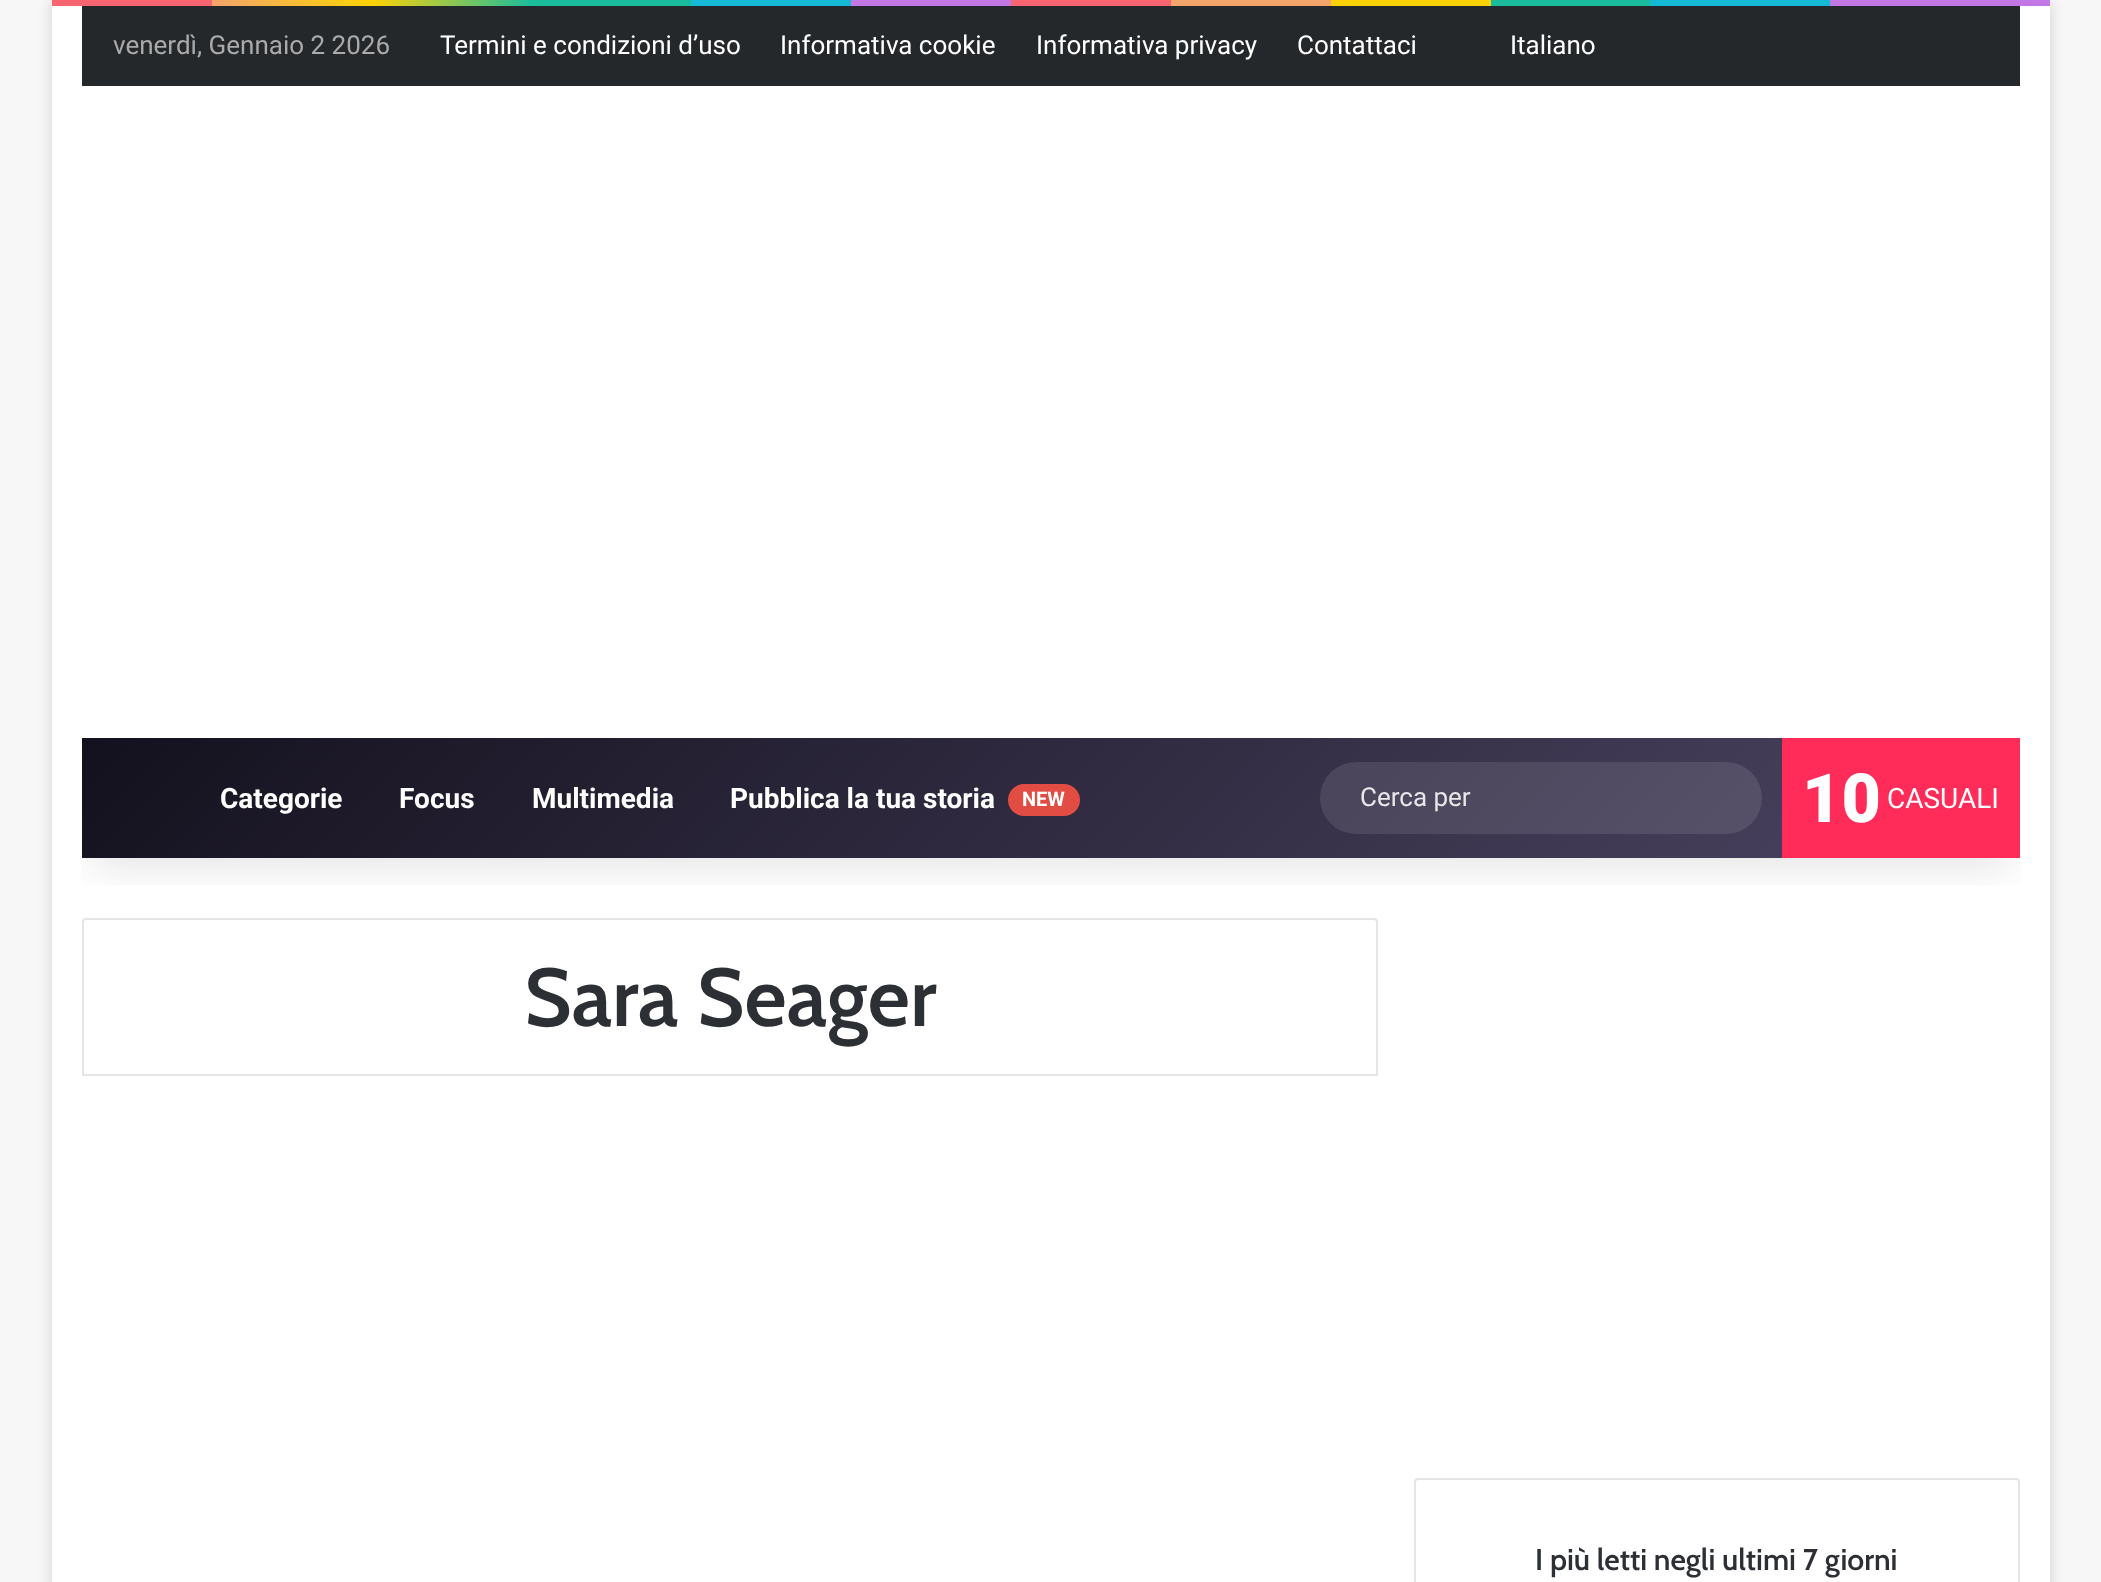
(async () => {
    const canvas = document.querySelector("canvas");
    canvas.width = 2101;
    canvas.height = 1582;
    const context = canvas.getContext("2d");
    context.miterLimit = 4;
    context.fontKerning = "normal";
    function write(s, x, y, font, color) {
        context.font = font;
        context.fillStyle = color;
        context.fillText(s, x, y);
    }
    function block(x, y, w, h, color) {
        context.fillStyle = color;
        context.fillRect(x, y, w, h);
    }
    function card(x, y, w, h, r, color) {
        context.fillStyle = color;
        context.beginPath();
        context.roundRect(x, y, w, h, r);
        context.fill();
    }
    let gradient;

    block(0, 0, 2101, 1582, "rgb(247, 247, 247)");
    context.fillStyle = "rgba(171, 171, 171, 0.5)";
    context.filter = "blur(7px)";
    context.beginPath();
    context.rect(52, 2, 1998, 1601);
    context.fill();
    context.filter = "none";
    block(52, 6, 1998, 1576, "rgb(255, 255, 255)");
    gradient = context.createLinearGradient(52, 3, 2050, 3);
    gradient.addColorStop(0, "rgb(247, 101, 112)");
    gradient.addColorStop(0.08, "rgb(247, 101, 112)");
    gradient.addColorStop(0.08, "rgb(243, 164, 107)");
    gradient.addColorStop(0.16, "rgb(255, 210, 5)");
    gradient.addColorStop(0.24, "rgb(27, 188, 155)");
    gradient.addColorStop(0.32, "rgb(27, 188, 155)");
    gradient.addColorStop(0.32, "rgb(20, 185, 213)");
    gradient.addColorStop(0.4, "rgb(20, 185, 213)");
    gradient.addColorStop(0.4, "rgb(195, 119, 228)");
    gradient.addColorStop(0.48, "rgb(195, 119, 228)");
    gradient.addColorStop(0.48, "rgb(247, 101, 112)");
    gradient.addColorStop(0.56, "rgb(247, 101, 112)");
    gradient.addColorStop(0.56, "rgb(243, 164, 107)");
    gradient.addColorStop(0.64, "rgb(243, 164, 107)");
    gradient.addColorStop(0.64, "rgb(255, 210, 5)");
    gradient.addColorStop(0.72, "rgb(255, 210, 5)");
    gradient.addColorStop(0.72, "rgb(27, 188, 155)");
    gradient.addColorStop(0.8, "rgb(27, 188, 155)");
    gradient.addColorStop(0.8, "rgb(20, 185, 213)");
    gradient.addColorStop(0.89, "rgb(20, 185, 213)");
    gradient.addColorStop(0.89, "rgb(195, 119, 228)");
    gradient.addColorStop(1, "rgb(195, 119, 228)");
    context.fillStyle = gradient;
    context.fillRect(52, 0, 1998, 6);
    context.beginPath();
    context.roundRect(83, 919, 1294, 156, [3, 3, 0, 0]);
    context.strokeStyle = "rgb(229, 229, 229)";
    context.lineWidth = 2;
    context.stroke();
    context.save();
    context.beginPath();
    context.rect(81, 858, 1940, 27);
    context.clip();
    context.fillStyle = "rgba(0, 0, 0, 0.1)";
    context.filter = "blur(20px)";
    context.beginPath();
    context.rect(92, 96, 1918, 772);
    context.fill();
    context.filter = "none";
    context.restore();
    block(82, 6, 1938, 80, "rgb(37, 40, 43)");
    write("venerdì, Gennaio 2 2026", 113, 54, "26px Roboto", "rgb(170, 170, 170)");
    write("Termini e condizioni d’uso", 440, 54, "26px Roboto", "rgb(255, 255, 255)");
    write("Informativa cookie", 780, 54, "26px Roboto", "rgb(255, 255, 255)");
    write("Informativa privacy", 1036, 54, "26px Roboto", "rgb(255, 255, 255)");
    write("Contattaci", 1297, 54, "26px Roboto", "rgb(255, 255, 255)");
    write("Italiano", 1510, 54, "26px Roboto", "rgb(255, 255, 255)");
    gradient = context.createLinearGradient(536, 284, 1566, 1313);
    gradient.addColorStop(0, "rgb(20, 17, 30)");
    gradient.addColorStop(1, "rgb(75, 68, 98)");
    context.fillStyle = gradient;
    context.fillRect(82, 738, 1700, 120);
    write("Categorie", 220, 808, "bold 28px Roboto", "rgb(255, 255, 255)");
    write("Focus", 399, 808, "bold 28px Roboto", "rgb(255, 255, 255)");
    write("Multimedia", 532, 808, "bold 28px Roboto", "rgb(255, 255, 255)");
    write("Pubblica la tua storia", 730, 808, "bold 28px Roboto", "rgb(255, 255, 255)");
    card(1008, 784, 72, 32, 16, "rgb(225, 77, 67)");
    write("NEW", 1022, 806, "bold 20px Roboto", "rgb(255, 255, 255)");
    card(1320, 762, 442, 72, 36, "rgba(255, 255, 255, 0.1)");
    write("Cerca per", 1360, 806, "26px Roboto", "rgb(232, 232, 232)");
    block(1782, 738, 238, 120, "rgb(255, 43, 88)");
    write("10", 1802, 822, "900 68px Roboto", "rgb(255, 255, 255)");
    write("CASUALI", 1887, 808, "28px Roboto", "rgb(255, 255, 255)");
    write("Sara Seager", 524, 1026, "600 82px Cabin", "rgb(44, 47, 52)");
    context.beginPath();
    context.roundRect(1415, 1479, 604, 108, 3);
    context.stroke();
    write("I più letti negli ultimi 7 giorni", 1535, 1570, "600 30px Cabin", "rgb(44, 47, 52)");
})();
